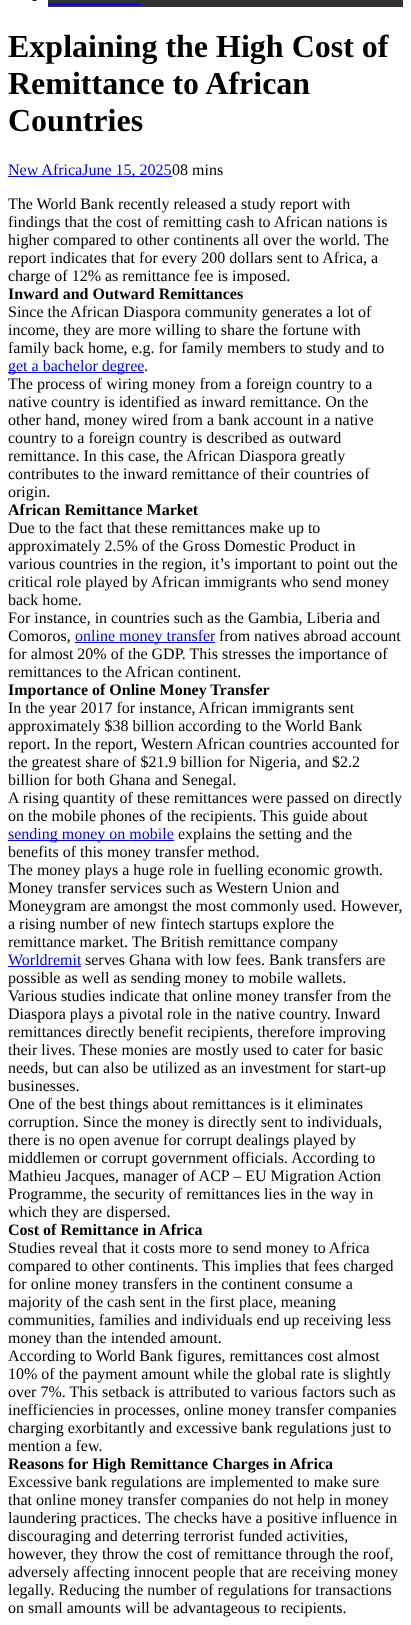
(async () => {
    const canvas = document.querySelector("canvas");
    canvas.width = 411;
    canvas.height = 1625;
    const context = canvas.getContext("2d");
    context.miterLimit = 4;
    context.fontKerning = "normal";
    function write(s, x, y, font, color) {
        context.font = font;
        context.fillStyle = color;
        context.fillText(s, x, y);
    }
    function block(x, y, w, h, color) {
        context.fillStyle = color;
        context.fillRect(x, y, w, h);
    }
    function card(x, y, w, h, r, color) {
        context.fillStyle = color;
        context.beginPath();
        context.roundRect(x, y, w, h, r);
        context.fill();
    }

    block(0, 0, 411, 1625, "rgb(255, 255, 255)");
    block(48, 0, 355, 7, "rgb(51, 51, 51)");
    card(32, -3, 5, 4, 2.5, "rgb(0, 0, 0)");
    block(48, 4, 93, 1, "rgb(0, 0, 238)");
    write("Explaining the High Cost of", 8, 57, "bold 32px Liberation Serif", "rgb(0, 0, 0)");
    write("Remittance to African", 8, 94, "bold 32px Liberation Serif", "rgb(0, 0, 0)");
    write("Countries", 8, 131, "bold 32px Liberation Serif", "rgb(0, 0, 0)");
    block(8, 176, 164, 1, "rgb(0, 0, 238)");
    write("New AfricaJune 15, 2025", 8, 175, "16px Liberation Serif", "rgb(0, 0, 238)");
    write("08 mins", 172, 175, "16px Liberation Serif", "rgb(0, 0, 0)");
    write("The World Bank recently released a study report with", 8, 209, "16px Liberation Serif", "rgb(0, 0, 0)");
    write("findings that the cost of remitting cash to African nations is", 8, 227, "16px Liberation Serif", "rgb(0, 0, 0)");
    write("higher compared to other continents all over the world. The", 8, 245, "16px Liberation Serif", "rgb(0, 0, 0)");
    write("report indicates that for every 200 dollars sent to Africa, a", 8, 263, "16px Liberation Serif", "rgb(0, 0, 0)");
    write("charge of 12% as remittance fee is imposed.", 8, 281, "16px Liberation Serif", "rgb(0, 0, 0)");
    write("Inward and Outward Remittances", 8, 299, "bold 16px Liberation Serif", "rgb(0, 0, 0)");
    write("Since the African Diaspora community generates a lot of", 8, 317, "16px Liberation Serif", "rgb(0, 0, 0)");
    write("income, they are more willing to share the fortune with", 8, 335, "16px Liberation Serif", "rgb(0, 0, 0)");
    write("family back home, e.g. for family members to study and to", 8, 353, "16px Liberation Serif", "rgb(0, 0, 0)");
    block(8, 372, 136, 1, "rgb(0, 0, 238)");
    write("get a bachelor degree", 8, 371, "16px Liberation Serif", "rgb(0, 0, 238)");
    write(".", 144, 371, "16px Liberation Serif", "rgb(0, 0, 0)");
    write("The process of wiring money from a foreign country to a", 8, 389, "16px Liberation Serif", "rgb(0, 0, 0)");
    write("native country is identified as inward remittance. On the", 8, 407, "16px Liberation Serif", "rgb(0, 0, 0)");
    write("other hand, money wired from a bank account in a native", 8, 425, "16px Liberation Serif", "rgb(0, 0, 0)");
    write("country to a foreign country is described as outward", 8, 443, "16px Liberation Serif", "rgb(0, 0, 0)");
    write("remittance. In this case, the African Diaspora greatly", 8, 461, "16px Liberation Serif", "rgb(0, 0, 0)");
    write("contributes to the inward remittance of their countries of", 8, 479, "16px Liberation Serif", "rgb(0, 0, 0)");
    write("origin.", 8, 497, "16px Liberation Serif", "rgb(0, 0, 0)");
    write("African Remittance Market", 8, 515, "bold 16px Liberation Serif", "rgb(0, 0, 0)");
    write("Due to the fact that these remittances make up to", 8, 533, "16px Liberation Serif", "rgb(0, 0, 0)");
    write("approximately 2.5% of the Gross Domestic Product in", 8, 551, "16px Liberation Serif", "rgb(0, 0, 0)");
    write("various countries in the region, it’s important to point out the", 8, 569, "16px Liberation Serif", "rgb(0, 0, 0)");
    write("critical role played by African immigrants who send money", 8, 587, "16px Liberation Serif", "rgb(0, 0, 0)");
    write("back home.", 8, 605, "16px Liberation Serif", "rgb(0, 0, 0)");
    write("For instance, in countries such as the Gambia, Liberia and", 8, 623, "16px Liberation Serif", "rgb(0, 0, 0)");
    write("Comoros,", 8, 641, "16px Liberation Serif", "rgb(0, 0, 0)");
    block(75, 642, 140, 1, "rgb(0, 0, 238)");
    write("online money transfer", 75, 641, "16px Liberation Serif", "rgb(0, 0, 238)");
    write("from natives abroad account", 219, 641, "16px Liberation Serif", "rgb(0, 0, 0)");
    write("for almost 20% of the GDP. This stresses the importance of", 8, 659, "16px Liberation Serif", "rgb(0, 0, 0)");
    write("remittances to the African continent.", 8, 677, "16px Liberation Serif", "rgb(0, 0, 0)");
    write("Importance of Online Money Transfer", 8, 695, "bold 16px Liberation Serif", "rgb(0, 0, 0)");
    write("In the year 2017 for instance, African immigrants sent", 8, 713, "16px Liberation Serif", "rgb(0, 0, 0)");
    write("approximately $38 billion according to the World Bank", 8, 731, "16px Liberation Serif", "rgb(0, 0, 0)");
    write("report. In the report, Western African countries accounted for", 8, 749, "16px Liberation Serif", "rgb(0, 0, 0)");
    write("the greatest share of $21.9 billion for Nigeria, and $2.2", 8, 767, "16px Liberation Serif", "rgb(0, 0, 0)");
    write("billion for both Ghana and Senegal.", 8, 785, "16px Liberation Serif", "rgb(0, 0, 0)");
    write("A rising quantity of these remittances were passed on directly", 8, 803, "16px Liberation Serif", "rgb(0, 0, 0)");
    write("on the mobile phones of the recipients. This guide about", 8, 821, "16px Liberation Serif", "rgb(0, 0, 0)");
    block(8, 840, 166, 1, "rgb(0, 0, 238)");
    write("sending money on mobile", 8, 839, "16px Liberation Serif", "rgb(0, 0, 238)");
    write("explains the setting and the", 178, 839, "16px Liberation Serif", "rgb(0, 0, 0)");
    write("benefits of this money transfer method.", 8, 857, "16px Liberation Serif", "rgb(0, 0, 0)");
    write("The money plays a huge role in fuelling economic growth.", 8, 875, "16px Liberation Serif", "rgb(0, 0, 0)");
    write("Money transfer services such as Western Union and", 8, 893, "16px Liberation Serif", "rgb(0, 0, 0)");
    write("Moneygram are amongst the most commonly used. However,", 8, 911, "16px Liberation Serif", "rgb(0, 0, 0)");
    write("a rising number of new fintech startups explore the", 8, 929, "16px Liberation Serif", "rgb(0, 0, 0)");
    write("remittance market. The British remittance company", 8, 947, "16px Liberation Serif", "rgb(0, 0, 0)");
    write("Worldremit", 8, 965, "16px Liberation Serif", "rgb(0, 0, 238)");
    block(8, 966, 73, 1, "rgb(0, 0, 238)");
    write("serves Ghana with low fees. Bank transfers are", 85, 965, "16px Liberation Serif", "rgb(0, 0, 0)");
    write("possible as well as sending money to mobile wallets.", 8, 983, "16px Liberation Serif", "rgb(0, 0, 0)");
    write("Various studies indicate that online money transfer from the", 8, 1001, "16px Liberation Serif", "rgb(0, 0, 0)");
    write("Diaspora plays a pivotal role in the native country. Inward", 8, 1019, "16px Liberation Serif", "rgb(0, 0, 0)");
    write("remittances directly benefit recipients, therefore improving", 8, 1037, "16px Liberation Serif", "rgb(0, 0, 0)");
    write("their lives. These monies are mostly used to cater for basic", 8, 1055, "16px Liberation Serif", "rgb(0, 0, 0)");
    write("needs, but can also be utilized as an investment for start-up", 8, 1073, "16px Liberation Serif", "rgb(0, 0, 0)");
    write("businesses.", 8, 1091, "16px Liberation Serif", "rgb(0, 0, 0)");
    write("One of the best things about remittances is it eliminates", 8, 1109, "16px Liberation Serif", "rgb(0, 0, 0)");
    write("corruption. Since the money is directly sent to individuals,", 8, 1127, "16px Liberation Serif", "rgb(0, 0, 0)");
    write("there is no open avenue for corrupt dealings played by", 8, 1145, "16px Liberation Serif", "rgb(0, 0, 0)");
    write("middlemen or corrupt government officials. According to", 8, 1163, "16px Liberation Serif", "rgb(0, 0, 0)");
    write("Mathieu Jacques, manager of ACP – EU Migration Action", 8, 1181, "16px Liberation Serif", "rgb(0, 0, 0)");
    write("Programme, the security of remittances lies in the way in", 8, 1199, "16px Liberation Serif", "rgb(0, 0, 0)");
    write("which they are dispersed.", 8, 1217, "16px Liberation Serif", "rgb(0, 0, 0)");
    write("Cost of Remittance in Africa", 8, 1235, "bold 16px Liberation Serif", "rgb(0, 0, 0)");
    write("Studies reveal that it costs more to send money to Africa", 8, 1253, "16px Liberation Serif", "rgb(0, 0, 0)");
    write("compared to other continents. This implies that fees charged", 8, 1271, "16px Liberation Serif", "rgb(0, 0, 0)");
    write("for online money transfers in the continent consume a", 8, 1289, "16px Liberation Serif", "rgb(0, 0, 0)");
    write("majority of the cash sent in the first place, meaning", 8, 1307, "16px Liberation Serif", "rgb(0, 0, 0)");
    write("communities, families and individuals end up receiving less", 8, 1325, "16px Liberation Serif", "rgb(0, 0, 0)");
    write("money than the intended amount.", 8, 1343, "16px Liberation Serif", "rgb(0, 0, 0)");
    write("According to World Bank figures, remittances cost almost", 8, 1361, "16px Liberation Serif", "rgb(0, 0, 0)");
    write("10% of the payment amount while the global rate is slightly", 8, 1379, "16px Liberation Serif", "rgb(0, 0, 0)");
    write("over 7%. This setback is attributed to various factors such as", 8, 1397, "16px Liberation Serif", "rgb(0, 0, 0)");
    write("inefficiencies in processes, online money transfer companies", 8, 1415, "16px Liberation Serif", "rgb(0, 0, 0)");
    write("charging exorbitantly and excessive bank regulations just to", 8, 1433, "16px Liberation Serif", "rgb(0, 0, 0)");
    write("mention a few.", 8, 1451, "16px Liberation Serif", "rgb(0, 0, 0)");
    write("Reasons for High Remittance Charges in Africa", 8, 1469, "bold 16px Liberation Serif", "rgb(0, 0, 0)");
    write("Excessive bank regulations are implemented to make sure", 8, 1487, "16px Liberation Serif", "rgb(0, 0, 0)");
    write("that online money transfer companies do not help in money", 8, 1505, "16px Liberation Serif", "rgb(0, 0, 0)");
    write("laundering practices. The checks have a positive influence in", 8, 1523, "16px Liberation Serif", "rgb(0, 0, 0)");
    write("discouraging and deterring terrorist funded activities,", 8, 1541, "16px Liberation Serif", "rgb(0, 0, 0)");
    write("however, they throw the cost of remittance through the roof,", 8, 1559, "16px Liberation Serif", "rgb(0, 0, 0)");
    write("adversely affecting innocent people that are receiving money", 8, 1577, "16px Liberation Serif", "rgb(0, 0, 0)");
    write("legally. Reducing the number of regulations for transactions", 8, 1595, "16px Liberation Serif", "rgb(0, 0, 0)");
    write("on small amounts will be advantageous to recipients.", 8, 1613, "16px Liberation Serif", "rgb(0, 0, 0)");
})();
